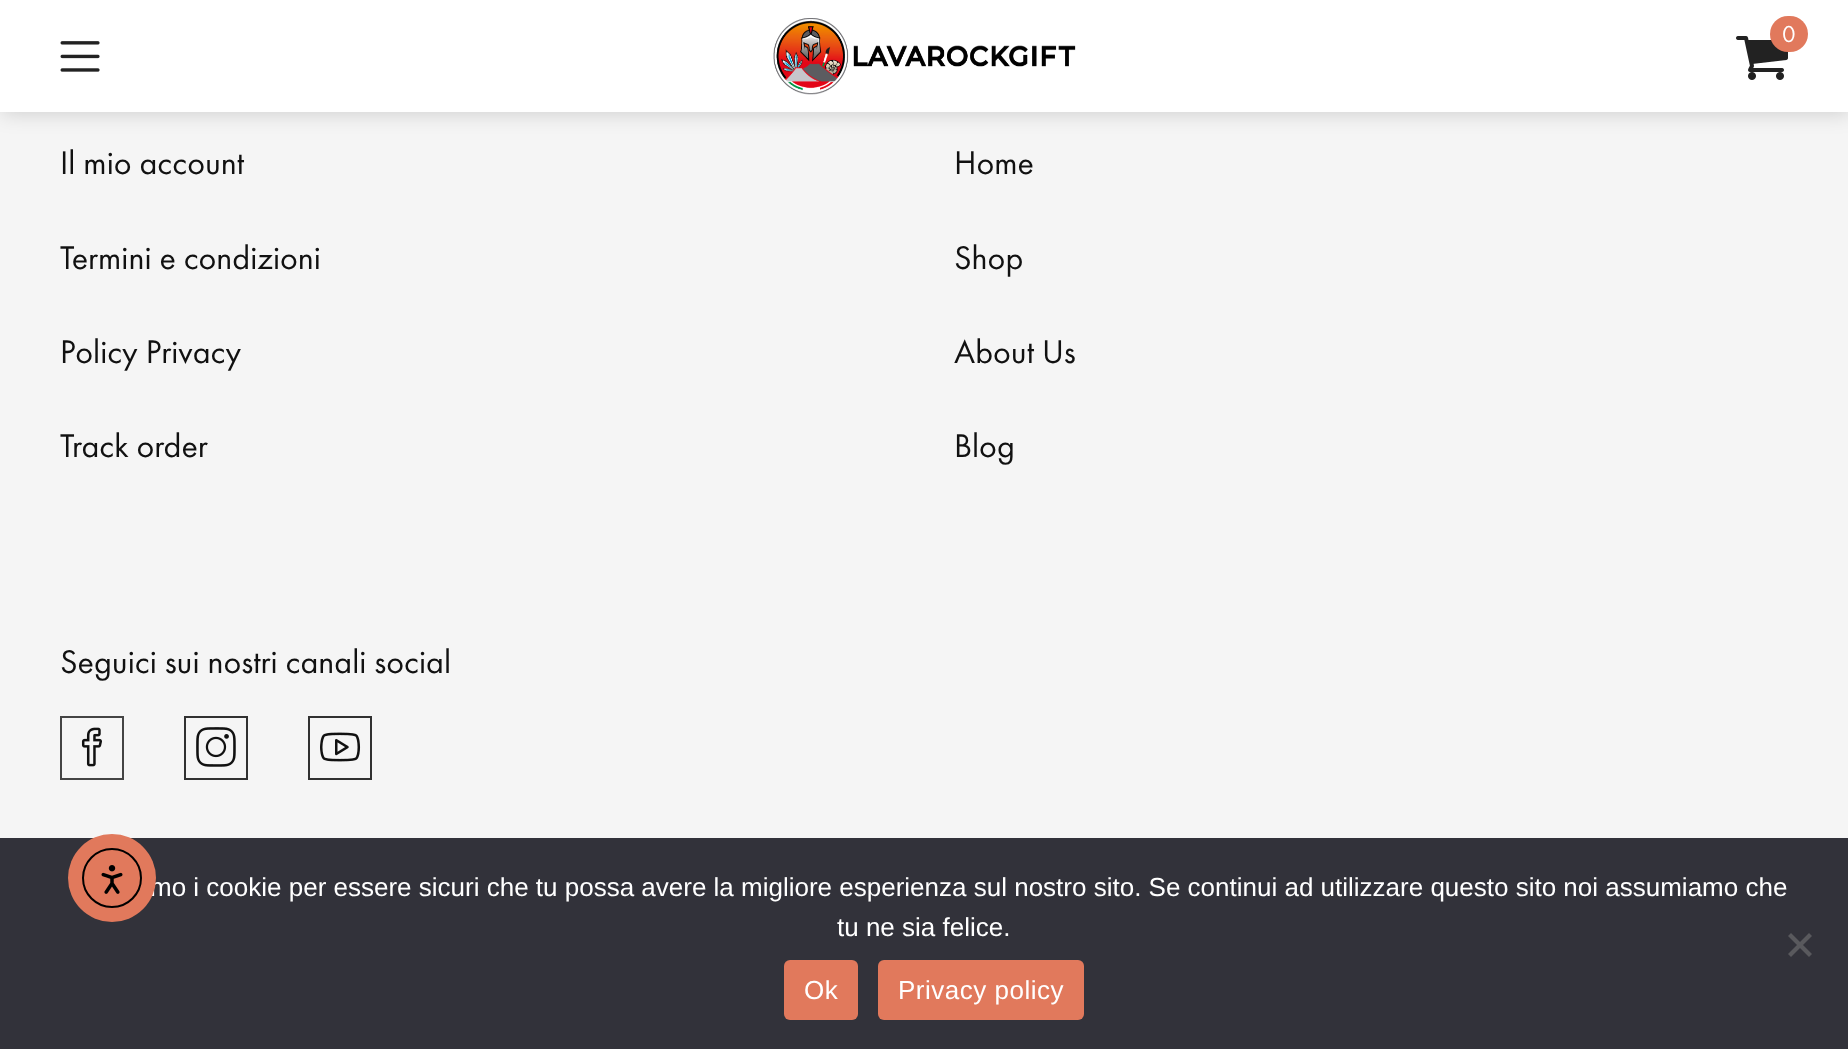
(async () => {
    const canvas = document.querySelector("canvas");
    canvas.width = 1848;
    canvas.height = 1049;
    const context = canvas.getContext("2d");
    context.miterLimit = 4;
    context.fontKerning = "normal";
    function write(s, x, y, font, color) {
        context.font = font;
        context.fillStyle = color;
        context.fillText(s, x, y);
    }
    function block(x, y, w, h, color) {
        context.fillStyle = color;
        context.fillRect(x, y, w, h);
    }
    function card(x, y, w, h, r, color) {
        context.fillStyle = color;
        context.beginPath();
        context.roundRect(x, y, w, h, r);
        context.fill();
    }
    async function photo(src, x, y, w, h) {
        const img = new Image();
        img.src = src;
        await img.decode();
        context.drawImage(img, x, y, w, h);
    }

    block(0, 0, 1848, 1049, "rgb(245, 245, 245)");
    context.fillStyle = "rgba(0, 0, 0, 0.15)";
    context.filter = "blur(10px)";
    context.beginPath();
    context.rect(2, 2, 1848, 112);
    context.fill();
    context.filter = "none";
    block(0, 0, 1848, 112, "rgb(255, 255, 255)");
    await photo("media/1.png", 773, 18, 303, 77);
    await photo("media/2.png", 1736, 36, 52, 44);
    card(1770, 16, 38, 36, 18, "rgb(225, 121, 92)");
    write("0", 1782, 42, "24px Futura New", "rgb(255, 255, 255)");
    await photo("media/3.png", 60, 41, 40, 31);
    write("Il mio account", 60, 174, "34px Futura New", "rgb(17, 17, 17)");
    write("Termini e condizioni", 60, 269, "34px Futura New", "rgb(17, 17, 17)");
    write("Policy Privacy", 60, 363, "34px Futura New", "rgb(17, 17, 17)");
    write("Track order", 60, 457, "34px Futura New", "rgb(17, 17, 17)");
    write("Home", 954, 174, "34px Futura New", "rgb(17, 17, 17)");
    write("Shop", 954, 269, "34px Futura New", "rgb(17, 17, 17)");
    write("About Us", 954, 363, "34px Futura New", "rgb(17, 17, 17)");
    write("Blog", 954, 457, "34px Futura New", "rgb(17, 17, 17)");
    write("Seguici sui nostri canali social", 60, 673, "34px Futura New", "rgb(17, 17, 17)");
    context.strokeStyle = "rgb(68, 68, 68)";
    context.lineWidth = 2;
    context.strokeRect(61, 717, 62, 62);
    await photo("media/4.png", 81, 727, 21, 40);
    context.strokeStyle = "rgb(49, 49, 49)";
    context.strokeRect(185, 717, 62, 62);
    await photo("media/5.png", 196, 727, 40, 40);
    context.strokeRect(309, 717, 62, 62);
    await photo("media/6.png", 320, 732, 41, 30);
    block(0, 838, 1848, 211, "rgb(50, 50, 58)");
    write("mo i cookie per essere sicuri che tu possa avere la migliore esperienza sul nostro sito. Se continui ad utilizzare questo sito noi assumiamo che", 150, 896, "26px Liberation Sans", "rgb(255, 255, 255)");
    context.fillStyle = "rgb(225, 121, 92)";
    context.beginPath();
    context.arc(112, 878, 44, 0, Math.PI * 2);
    context.fill();
    context.beginPath();
    context.arc(112, 878, 29, 0, Math.PI * 2);
    context.strokeStyle = "rgb(0, 0, 0)";
    context.stroke();
    await photo("media/7.png", 101, 865, 22, 29);
    write("tu ne sia felice.", 837, 936, "26px Liberation Sans", "rgb(255, 255, 255)");
    context.fillStyle = "rgb(89, 89, 93)";
    context.beginPath();
    context.moveTo(1809, 933);
    context.lineTo(1812, 936);
    context.lineTo(1791, 957);
    context.lineTo(1788, 954);
    context.closePath();
    context.fill();
    context.beginPath();
    context.moveTo(1788, 936);
    context.lineTo(1791, 933);
    context.lineTo(1812, 954);
    context.lineTo(1809, 957);
    context.closePath();
    context.fill();
    card(784, 960, 74, 60, 6, "rgb(225, 121, 92)");
    context.letterSpacing = "0.5px";
    write("Ok", 804, 999, "26px Liberation Sans", "rgb(255, 255, 255)");
    card(878, 960, 206, 60, 6, "rgb(225, 121, 92)");
    write("Privacy policy", 898, 999, "26px Liberation Sans", "rgb(255, 255, 255)");
})();
